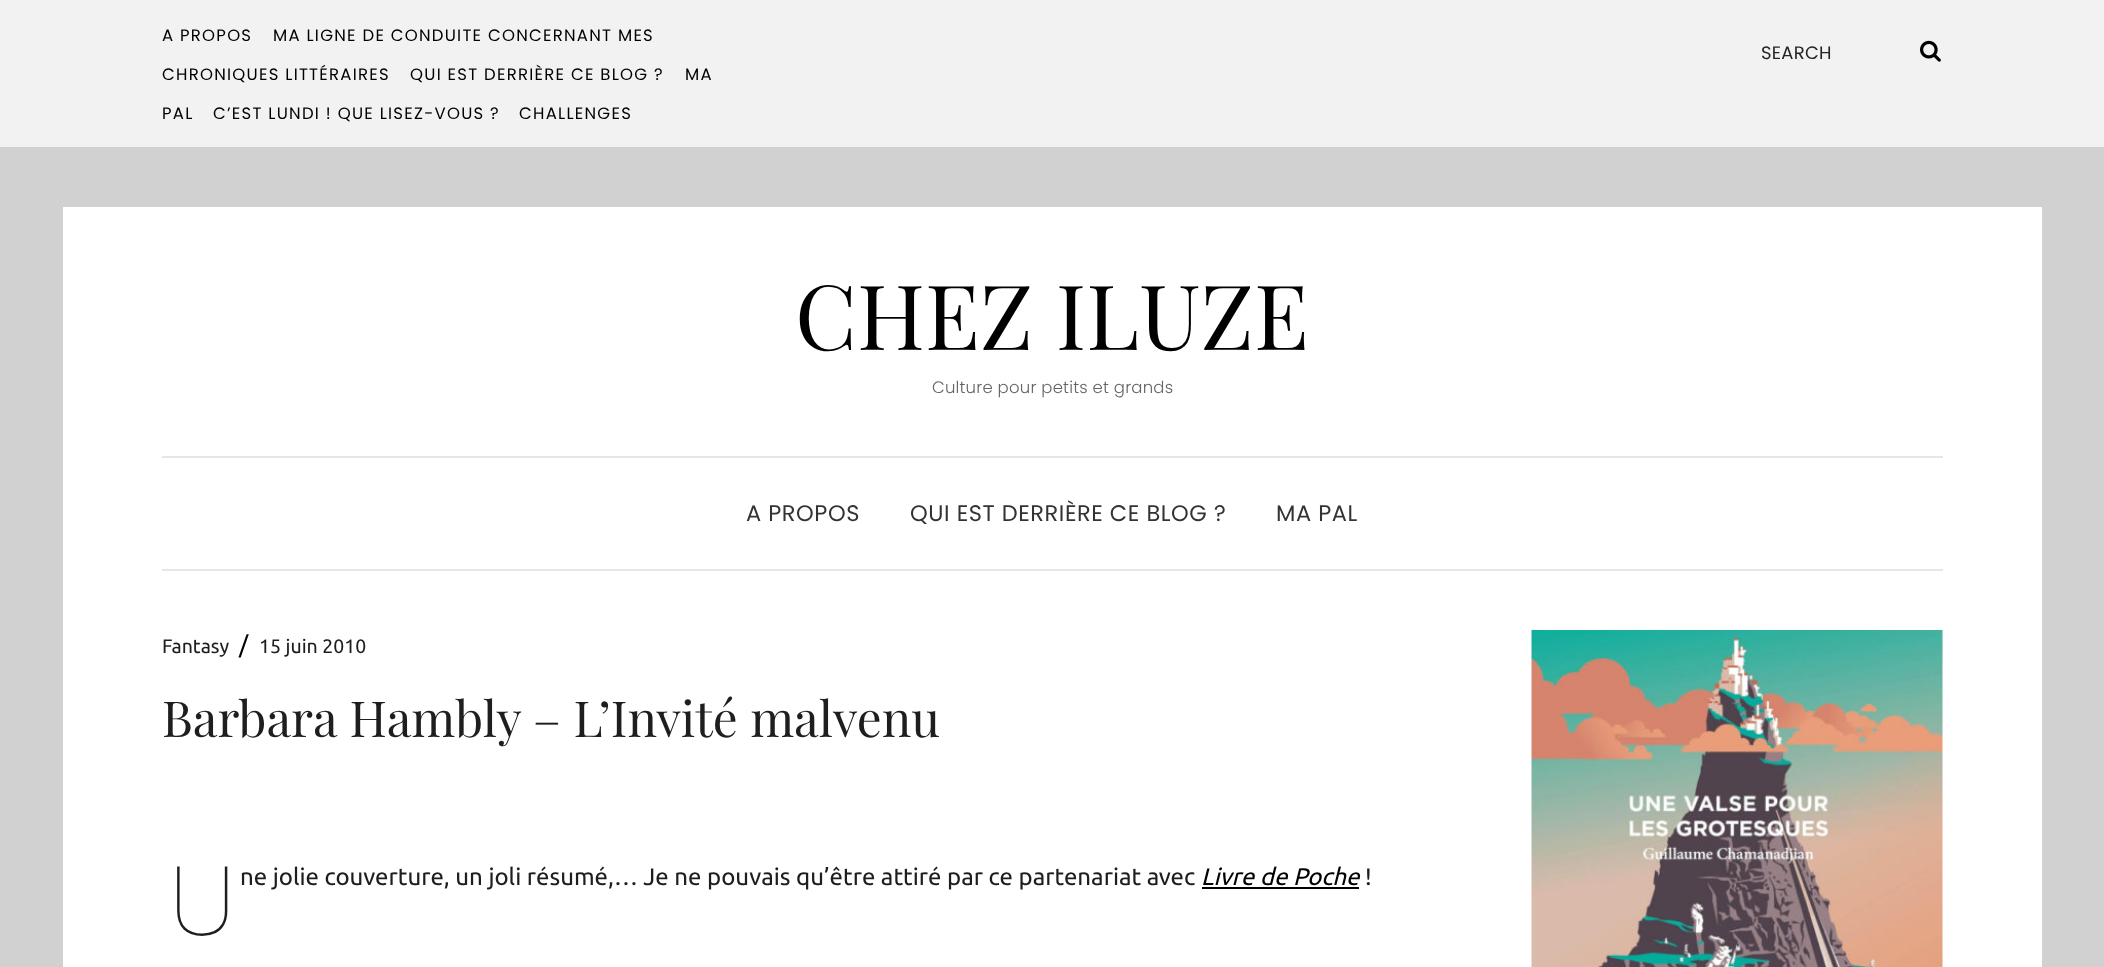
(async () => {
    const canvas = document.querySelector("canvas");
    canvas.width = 2104;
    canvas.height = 967;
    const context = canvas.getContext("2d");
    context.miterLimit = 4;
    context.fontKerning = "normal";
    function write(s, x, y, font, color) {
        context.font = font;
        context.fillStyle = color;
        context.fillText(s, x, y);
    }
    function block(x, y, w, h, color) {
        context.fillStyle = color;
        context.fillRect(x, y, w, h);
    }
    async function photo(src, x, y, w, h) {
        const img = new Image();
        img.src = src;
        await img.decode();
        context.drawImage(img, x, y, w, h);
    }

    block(0, 0, 2104, 967, "rgb(209, 209, 209)");
    block(0, 0, 2104, 147, "rgb(242, 242, 242)");
    context.letterSpacing = "1.25px";
    write("A PROPOS", 162, 41, "16.5px Poppins", "rgb(0, 0, 0)");
    write("MA LIGNE DE CONDUITE CONCERNANT MES", 273, 41, "16.5px Poppins", "rgb(0, 0, 0)");
    write("CHRONIQUES LITTÉRAIRES", 162, 80, "16.5px Poppins", "rgb(0, 0, 0)");
    write("QUI EST DERRIÈRE CE BLOG ?", 410, 80, "16.5px Poppins", "rgb(0, 0, 0)");
    write("MA", 685, 80, "16.5px Poppins", "rgb(0, 0, 0)");
    write("PAL", 162, 119, "16.5px Poppins", "rgb(0, 0, 0)");
    write("C’EST LUNDI ! QUE LISEZ-VOUS ?", 213, 119, "16.5px Poppins", "rgb(0, 0, 0)");
    write("CHALLENGES", 519, 119, "16.5px Poppins", "rgb(0, 0, 0)");
    context.letterSpacing = "0.25px";
    write("SEARCH", 1761, 59, "18px Poppins", "rgb(36, 36, 36)");
    await photo("media/1.png", 1920, 40, 21, 22);
    block(63, 207, 1979, 760, "rgb(255, 255, 255)");
    context.letterSpacing = "0px";
    write("CHEZ ILUZE", 795, 350, "90px Playfair Display", "rgb(0, 0, 0)");
    context.letterSpacing = "0.2px";
    write("Culture pour petits et grands", 932, 393, "300 16.5px Poppins", "rgb(100, 100, 100)");
    block(162, 456, 1781, 2, "rgb(230, 230, 230)");
    block(162, 569, 1781, 2, "rgb(230, 230, 230)");
    context.letterSpacing = "0.55px";
    write("A PROPOS", 746, 521, "22.5px Poppins", "rgb(51, 51, 51)");
    write("QUI EST DERRIÈRE CE BLOG ?", 910, 521, "22.5px Poppins", "rgb(51, 51, 51)");
    write("MA PAL", 1276, 521, "22.5px Poppins", "rgb(51, 51, 51)");
    context.letterSpacing = "0px";
    write("Fantasy", 162, 653, "19.5px Ubuntu", "rgb(30, 30, 30)");
    write("/", 239, 653, "24px Ubuntu", "rgb(0, 0, 0)");
    write("15 juin 2010", 259, 653, "19.5px Ubuntu", "rgb(30, 30, 30)");
    write("Barbara Hambly – L’Invité malvenu", 162, 737, "49.5px Playfair Display", "rgb(30, 30, 30)");
    write("U", 168, 935, "100 96px Noto Sans", "rgb(30, 30, 30)");
    write("ne jolie couverture, un joli résumé,… Je ne pouvais qu’être attiré par ce partenariat avec", 240, 885, "24px Ubuntu", "rgb(30, 30, 30)");
    write("Livre de Poche", 1201, 885, "italic 24px Ubuntu", "rgb(0, 0, 0)");
    block(1202, 887, 157, 2, "rgb(0, 0, 0)");
    write("!", 1365, 885, "24px Ubuntu", "rgb(30, 30, 30)");
    await photo("media/2.png", 1531, 630, 412, 337);
})();
